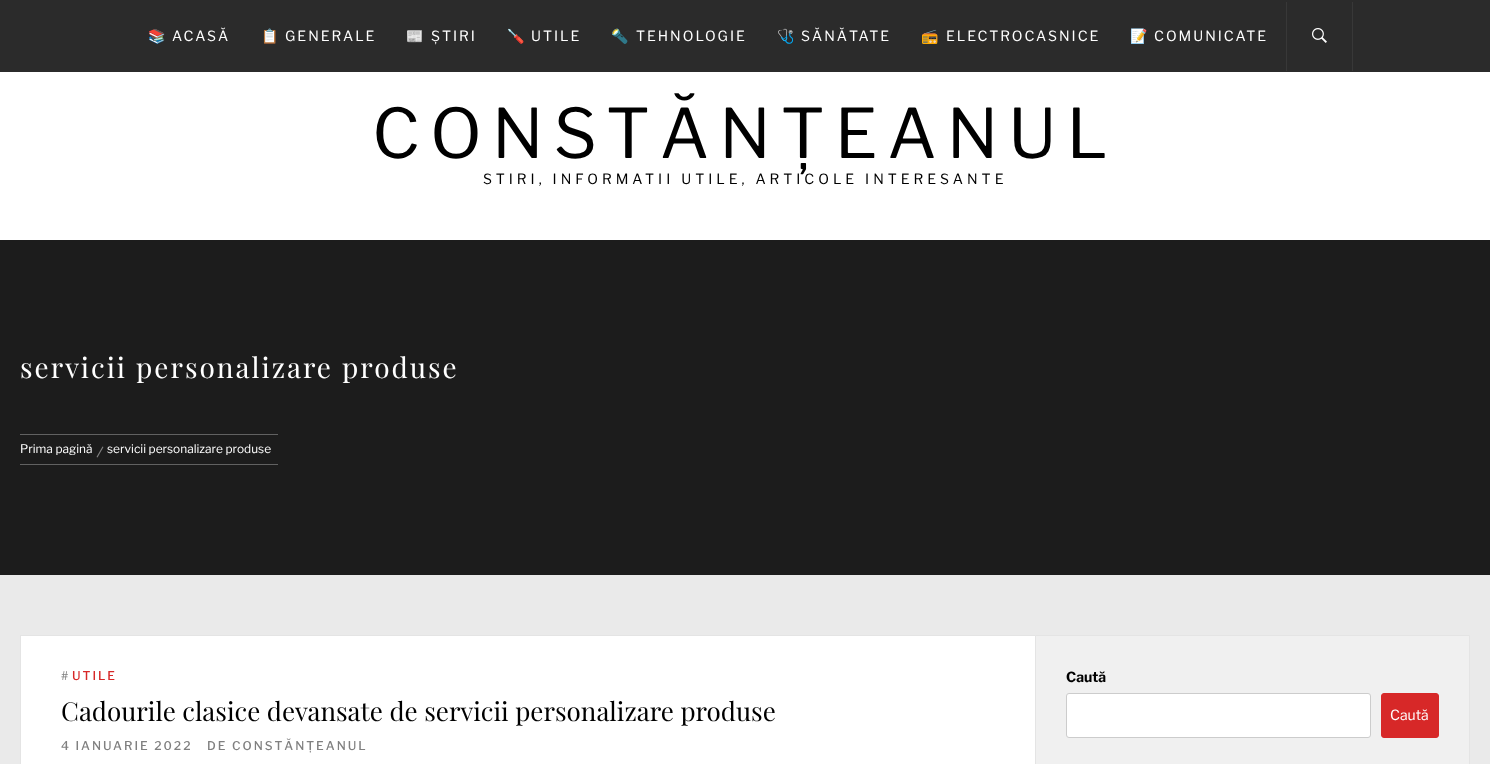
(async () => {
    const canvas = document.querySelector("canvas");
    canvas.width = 1490;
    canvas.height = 764;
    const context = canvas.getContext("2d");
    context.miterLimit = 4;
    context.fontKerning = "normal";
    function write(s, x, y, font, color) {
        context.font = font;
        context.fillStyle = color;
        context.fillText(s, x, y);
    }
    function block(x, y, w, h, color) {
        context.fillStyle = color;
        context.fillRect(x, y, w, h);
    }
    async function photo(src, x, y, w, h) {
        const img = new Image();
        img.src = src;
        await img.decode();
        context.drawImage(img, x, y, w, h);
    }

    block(0, 0, 1490, 764, "rgb(255, 255, 255)");
    block(0, 0, 1490, 72, "rgb(43, 43, 43)");
    context.letterSpacing = "2px";
    write("📚", 148, 41, "14px Noto Color Emoji", "rgb(255, 255, 255)");
    write("ACASĂ", 172, 41, "14px Libre Franklin", "rgb(255, 255, 255)");
    write("📋", 261, 41, "14px Noto Color Emoji", "rgb(255, 255, 255)");
    write("GENERALE", 285, 41, "14px Libre Franklin", "rgb(255, 255, 255)");
    write("📰", 406, 41, "14px Noto Color Emoji", "rgb(255, 255, 255)");
    write("ȘTIRI", 431, 41, "14px Libre Franklin", "rgb(255, 255, 255)");
    write("🪛", 507, 41, "14px Noto Color Emoji", "rgb(255, 255, 255)");
    write("UTILE", 531, 41, "14px Libre Franklin", "rgb(255, 255, 255)");
    write("🔦", 611, 41, "14px Noto Color Emoji", "rgb(255, 255, 255)");
    write("TEHNOLOGIE", 636, 41, "14px Libre Franklin", "rgb(255, 255, 255)");
    write("🩺", 777, 41, "14px Noto Color Emoji", "rgb(255, 255, 255)");
    write("SĂNĂTATE", 801, 41, "14px Libre Franklin", "rgb(255, 255, 255)");
    write("📻", 921, 41, "14px Noto Color Emoji", "rgb(255, 255, 255)");
    write("ELECTROCASNICE", 946, 41, "14px Libre Franklin", "rgb(255, 255, 255)");
    write("📝", 1130, 41, "14px Noto Color Emoji", "rgb(255, 255, 255)");
    write("COMUNICATE", 1154, 41, "14px Libre Franklin", "rgb(255, 255, 255)");
    block(1352, 2, 1, 69, "rgb(56, 56, 56)");
    block(1286, 2, 1, 69, "rgb(56, 56, 56)");
    await photo("media/1.png", 1312, 28, 15, 15);
    context.letterSpacing = "10px";
    write("CONSTĂNȚEANUL", 372, 158, "68px Libre Franklin", "rgb(0, 0, 0)");
    context.letterSpacing = "4px";
    write("STIRI, INFORMATII UTILE, ARTICOLE INTERESANTE", 483, 184, "14px Libre Franklin", "rgb(0, 0, 0)");
    block(0, 240, 1490, 335, "rgb(28, 28, 28)");
    context.letterSpacing = "2px";
    write("servicii personalizare produse", 20, 378, "28px Playfair Display", "rgb(255, 255, 255)");
    block(20, 434, 258, 1, "rgb(97, 97, 97)");
    block(20, 464, 258, 1, "rgb(97, 97, 97)");
    context.letterSpacing = "0px";
    write("Prima pagină", 20, 453, "11.9px Libre Franklin", "rgb(255, 255, 255)");
    context.fillStyle = "rgb(130, 130, 130)";
    context.beginPath();
    context.moveTo(102.5, 446.5);
    context.lineTo(103.5, 447);
    context.lineTo(97.5, 457.5);
    context.lineTo(96.5, 457);
    context.closePath();
    context.fill();
    write("servicii personalizare produse", 107, 453, "11.9px Libre Franklin", "rgb(255, 255, 255)");
    block(0, 575, 1490, 189, "rgb(234, 234, 234)");
    block(21, 636, 1014, 128, "rgb(255, 255, 255)");
    block(20, 635, 1015, 1, "rgb(228, 228, 228)");
    block(20, 635, 1, 129, "rgb(228, 228, 228)");
    context.letterSpacing = "2px";
    write("#", 61, 680, "500 12px Libre Franklin", "rgb(128, 128, 128)");
    write("UTILE", 72, 680, "500 12px Libre Franklin", "rgb(215, 40, 40)");
    context.letterSpacing = "0px";
    write("Cadourile clasice devansate de servicii personalizare produse", 61, 721, "26px Playfair Display", "rgb(0, 0, 0)");
    context.letterSpacing = "2px";
    write("4 IANUARIE 2022", 61, 750, "500 12px Libre Franklin", "rgb(128, 128, 128)");
    write("DE CONSTĂNȚEANUL", 207, 750, "500 12px Libre Franklin", "rgb(128, 128, 128)");
    context.fillStyle = "rgb(240, 240, 240)";
    context.beginPath();
    context.rect(1035.5, 635.5, 434, 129);
    context.fill();
    context.strokeStyle = "rgb(228, 228, 228)";
    context.stroke();
    context.letterSpacing = "0px";
    write("Caută", 1066, 682, "bold 14px Libre Franklin", "rgb(0, 0, 0)");
    context.fillStyle = "rgb(255, 255, 255)";
    context.beginPath();
    context.roundRect(1066.5, 693.5, 304, 44, 2.5);
    context.fill();
    context.strokeStyle = "rgb(204, 204, 204)";
    context.stroke();
    context.fillStyle = "rgb(215, 40, 40)";
    context.beginPath();
    context.roundRect(1381.5, 693.5, 57, 44, 2.5);
    context.fill();
    context.strokeStyle = "rgb(215, 40, 40)";
    context.stroke();
    write("Caută", 1390, 720, "14px Libre Franklin", "rgb(255, 255, 255)");
})();
